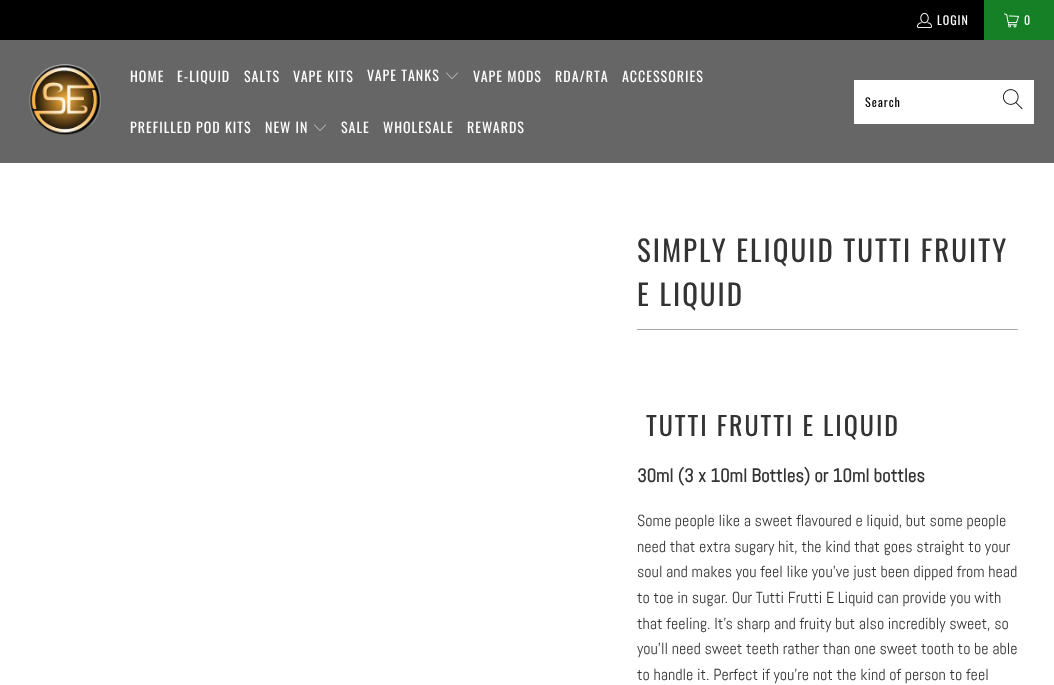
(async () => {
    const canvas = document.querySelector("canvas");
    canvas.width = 1054;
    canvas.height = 685;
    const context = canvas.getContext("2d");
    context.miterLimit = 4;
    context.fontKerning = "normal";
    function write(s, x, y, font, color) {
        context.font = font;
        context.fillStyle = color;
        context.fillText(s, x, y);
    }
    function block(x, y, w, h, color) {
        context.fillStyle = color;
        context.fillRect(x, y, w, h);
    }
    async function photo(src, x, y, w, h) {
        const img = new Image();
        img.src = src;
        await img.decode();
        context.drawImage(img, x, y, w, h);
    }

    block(0, 0, 1054, 685, "rgb(255, 255, 255)");
    block(0, 0, 984, 40, "rgb(0, 0, 0)");
    await photo("media/1.png", 917, 12, 15, 16);
    context.letterSpacing = "1px";
    write("LOGIN", 937, 25, "12px Oswald", "rgb(255, 255, 255)");
    block(984, 0, 70, 40, "rgb(22, 128, 38)");
    await photo("media/2.png", 1004, 13, 15, 15);
    write("0", 1024, 25, "12px Oswald", "rgb(255, 255, 255)");
    block(0, 40, 1054, 123, "rgb(102, 102, 102)");
    await photo("media/3.png", 29, 64, 72, 71);
    write("HOME", 130, 82, "14px Oswald", "rgb(255, 255, 255)");
    write("E-LIQUID", 177, 82, "14px Oswald", "rgb(255, 255, 255)");
    write("SALTS", 244, 82, "14px Oswald", "rgb(255, 255, 255)");
    write("VAPE KITS", 293, 82, "14px Oswald", "rgb(255, 255, 255)");
    write("VAPE TANKS", 367, 81, "14px Oswald", "rgb(255, 255, 255)");
    await photo("media/4.png", 446, 72, 12, 7);
    write("VAPE MODS", 473, 82, "14px Oswald", "rgb(255, 255, 255)");
    write("RDA/RTA", 555, 82, "14px Oswald", "rgb(255, 255, 255)");
    write("ACCESSORIES", 622, 82, "14px Oswald", "rgb(255, 255, 255)");
    write("PREFILLED POD KITS", 130, 133, "14px Oswald", "rgb(255, 255, 255)");
    write("NEW IN", 265, 133, "14px Oswald", "rgb(255, 255, 255)");
    await photo("media/4.png", 314, 124, 12, 7);
    write("SALE", 341, 133, "14px Oswald", "rgb(255, 255, 255)");
    write("WHOLESALE", 383, 133, "14px Oswald", "rgb(255, 255, 255)");
    write("REWARDS", 467, 133, "14px Oswald", "rgb(255, 255, 255)");
    block(854, 80, 180, 44, "rgb(255, 255, 255)");
    write("Search", 865, 107, "12px Oswald", "rgb(0, 0, 0)");
    await photo("media/5.png", 1003, 89, 20, 21);
    context.letterSpacing = "2px";
    write("SIMPLY ELIQUID TUTTI FRUITY", 637, 262, "29px Oswald", "rgb(51, 51, 51)");
    write("E LIQUID", 637, 306, "29px Oswald", "rgb(51, 51, 51)");
    block(637, 329, 381, 1, "rgb(170, 170, 170)");
    write("TUTTI FRUTTI E LIQUID", 646, 436, "26px Oswald", "rgb(51, 51, 51)");
    context.letterSpacing = "0px";
    write("30ml (3 x 10ml Bottles) or 10ml bottles", 637, 482, "bold 18.75px Abel", "rgb(51, 51, 51)");
    write("Some people like a sweet flavoured e liquid, but some people", 637, 526, "16px Abel", "rgb(51, 51, 51)");
    write("need that extra sugary hit, the kind that goes straight to your", 637, 552, "16px Abel", "rgb(51, 51, 51)");
    write("soul and makes you feel like you've just been dipped from head", 637, 577, "16px Abel", "rgb(51, 51, 51)");
    write("to toe in sugar. Our Tutti Frutti E Liquid can provide you with", 637, 603, "16px Abel", "rgb(51, 51, 51)");
    write("that feeling. It's sharp and fruity but also incredibly sweet, so", 637, 629, "16px Abel", "rgb(51, 51, 51)");
    write("you'll need sweet teeth rather than one sweet tooth to be able", 637, 654, "16px Abel", "rgb(51, 51, 51)");
    write("to handle it. Perfect if you're not the kind of person to feel", 637, 680, "16px Abel", "rgb(51, 51, 51)");
})();
